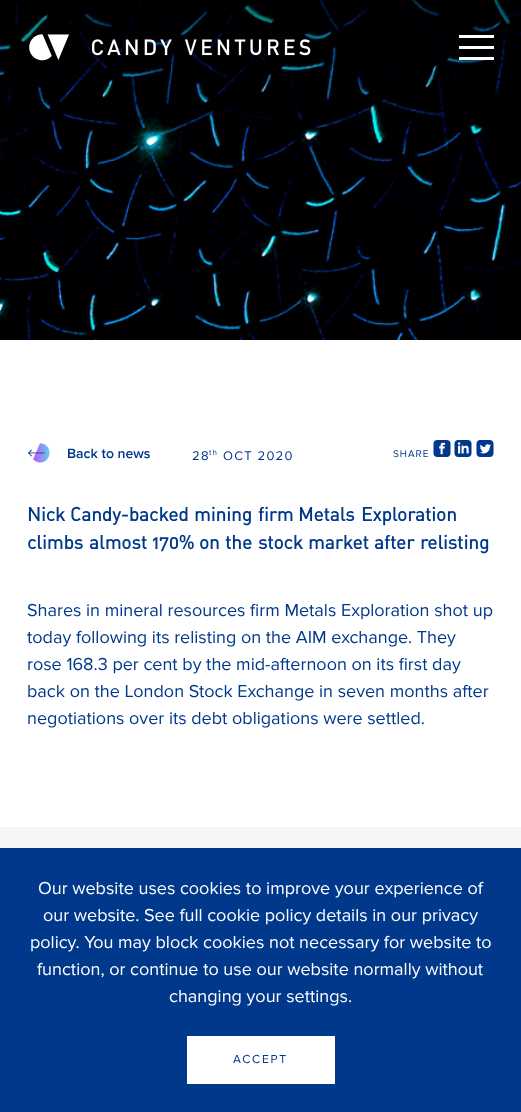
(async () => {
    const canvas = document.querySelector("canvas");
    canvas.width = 521;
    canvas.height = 1112;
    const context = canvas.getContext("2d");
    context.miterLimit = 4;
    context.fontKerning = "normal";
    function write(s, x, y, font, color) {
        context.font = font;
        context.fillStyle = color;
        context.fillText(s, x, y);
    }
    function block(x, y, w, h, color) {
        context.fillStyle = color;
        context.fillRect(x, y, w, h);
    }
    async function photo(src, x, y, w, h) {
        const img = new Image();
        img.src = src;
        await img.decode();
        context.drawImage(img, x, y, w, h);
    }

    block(0, 0, 521, 1112, "rgb(255, 255, 255)");
    await photo("media/2.png", 0, 0, 521, 340);
    await photo("media/1.png", 29, 34, 282, 27);
    block(459, 35, 35, 3, "rgb(255, 255, 255)");
    block(459, 46, 35, 3, "rgb(255, 255, 255)");
    block(459, 57, 35, 3, "rgb(255, 255, 255)");
    await photo("media/3.png", 27, 443, 23, 20);
    write("Back to news", 67, 458, "600 14px Proxima Nova", "rgb(0, 56, 140)");
    context.letterSpacing = "1.25px";
    write("28", 192, 460, "13px Proxima Nova", "rgb(0, 56, 140)");
    write("th", 209, 455, "8px Proxima Nova", "rgb(0, 56, 140)");
    write("OCT 2020", 223, 460, "13px Proxima Nova", "rgb(0, 56, 140)");
    context.letterSpacing = "1px";
    write("SHARE", 393, 457, "10px Proxima Nova", "rgb(0, 56, 140)");
    await photo("media/4.png", 433, 440, 18, 17);
    await photo("media/5.png", 454, 440, 18, 17);
    await photo("media/6.png", 476, 440, 18, 17);
    context.letterSpacing = "0px";
    write("Nick", 27, 521, "bold 19px DIN", "rgb(0, 56, 140)");
    write("Candy-backed", 70, 521, "bold 19px DIN", "rgb(0, 56, 140)");
    write("mining", 194, 521, "bold 19px DIN", "rgb(0, 56, 140)");
    write("firm", 258, 521, "bold 19px DIN", "rgb(0, 56, 140)");
    write("Metals", 298, 521, "bold 19px DIN", "rgb(0, 56, 140)");
    write("Exploration", 361, 521, "bold 19px DIN", "rgb(0, 56, 140)");
    write("climbs", 27, 549, "bold 19px DIN", "rgb(0, 56, 140)");
    write("almost", 89, 549, "bold 19px DIN", "rgb(0, 56, 140)");
    write("170%", 152, 549, "bold 19px DIN", "rgb(0, 56, 140)");
    write("on", 199, 549, "bold 19px DIN", "rgb(0, 56, 140)");
    write("the", 225, 549, "bold 19px DIN", "rgb(0, 56, 140)");
    write("stock", 258, 549, "bold 19px DIN", "rgb(0, 56, 140)");
    write("market", 308, 549, "bold 19px DIN", "rgb(0, 56, 140)");
    write("after", 374, 549, "bold 19px DIN", "rgb(0, 56, 140)");
    write("relisting", 420, 549, "bold 19px DIN", "rgb(0, 56, 140)");
    write("Shares in mineral resources firm Metals Exploration shot up", 27, 616, "18px Proxima Nova", "rgb(0, 56, 140)");
    write("today following its relisting on the AIM exchange. They", 27, 643, "18px Proxima Nova", "rgb(0, 56, 140)");
    write("rose 168.3 per cent by the mid-afternoon on its first day", 27, 670, "18px Proxima Nova", "rgb(0, 56, 140)");
    write("back on the London Stock Exchange in seven months after", 27, 697, "18px Proxima Nova", "rgb(0, 56, 140)");
    write("negotiations over its debt obligations were settled.", 27, 724, "18px Proxima Nova", "rgb(0, 56, 140)");
    block(0, 827, 521, 21, "rgb(246, 246, 246)");
    block(0, 848, 521, 264, "rgb(0, 56, 140)");
    write("Our website uses cookies to improve your experience of", 38, 894, "18px Proxima Nova", "rgb(255, 255, 255)");
    write("our website. See full cookie policy details in our privacy", 43, 921, "18px Proxima Nova", "rgb(255, 255, 255)");
    write("policy. You may block cookies not necessary for website to", 30, 948, "18px Proxima Nova", "rgb(255, 255, 255)");
    write("function, or continue to use our website normally without", 37, 975, "18px Proxima Nova", "rgb(255, 255, 255)");
    write("changing your settings.", 169, 1002, "18px Proxima Nova", "rgb(255, 255, 255)");
    block(187, 1036, 148, 48, "rgb(255, 255, 255)");
    context.letterSpacing = "1.75px";
    write("ACCEPT", 233, 1063, "12px Proxima Nova", "rgb(0, 56, 140)");
})();
